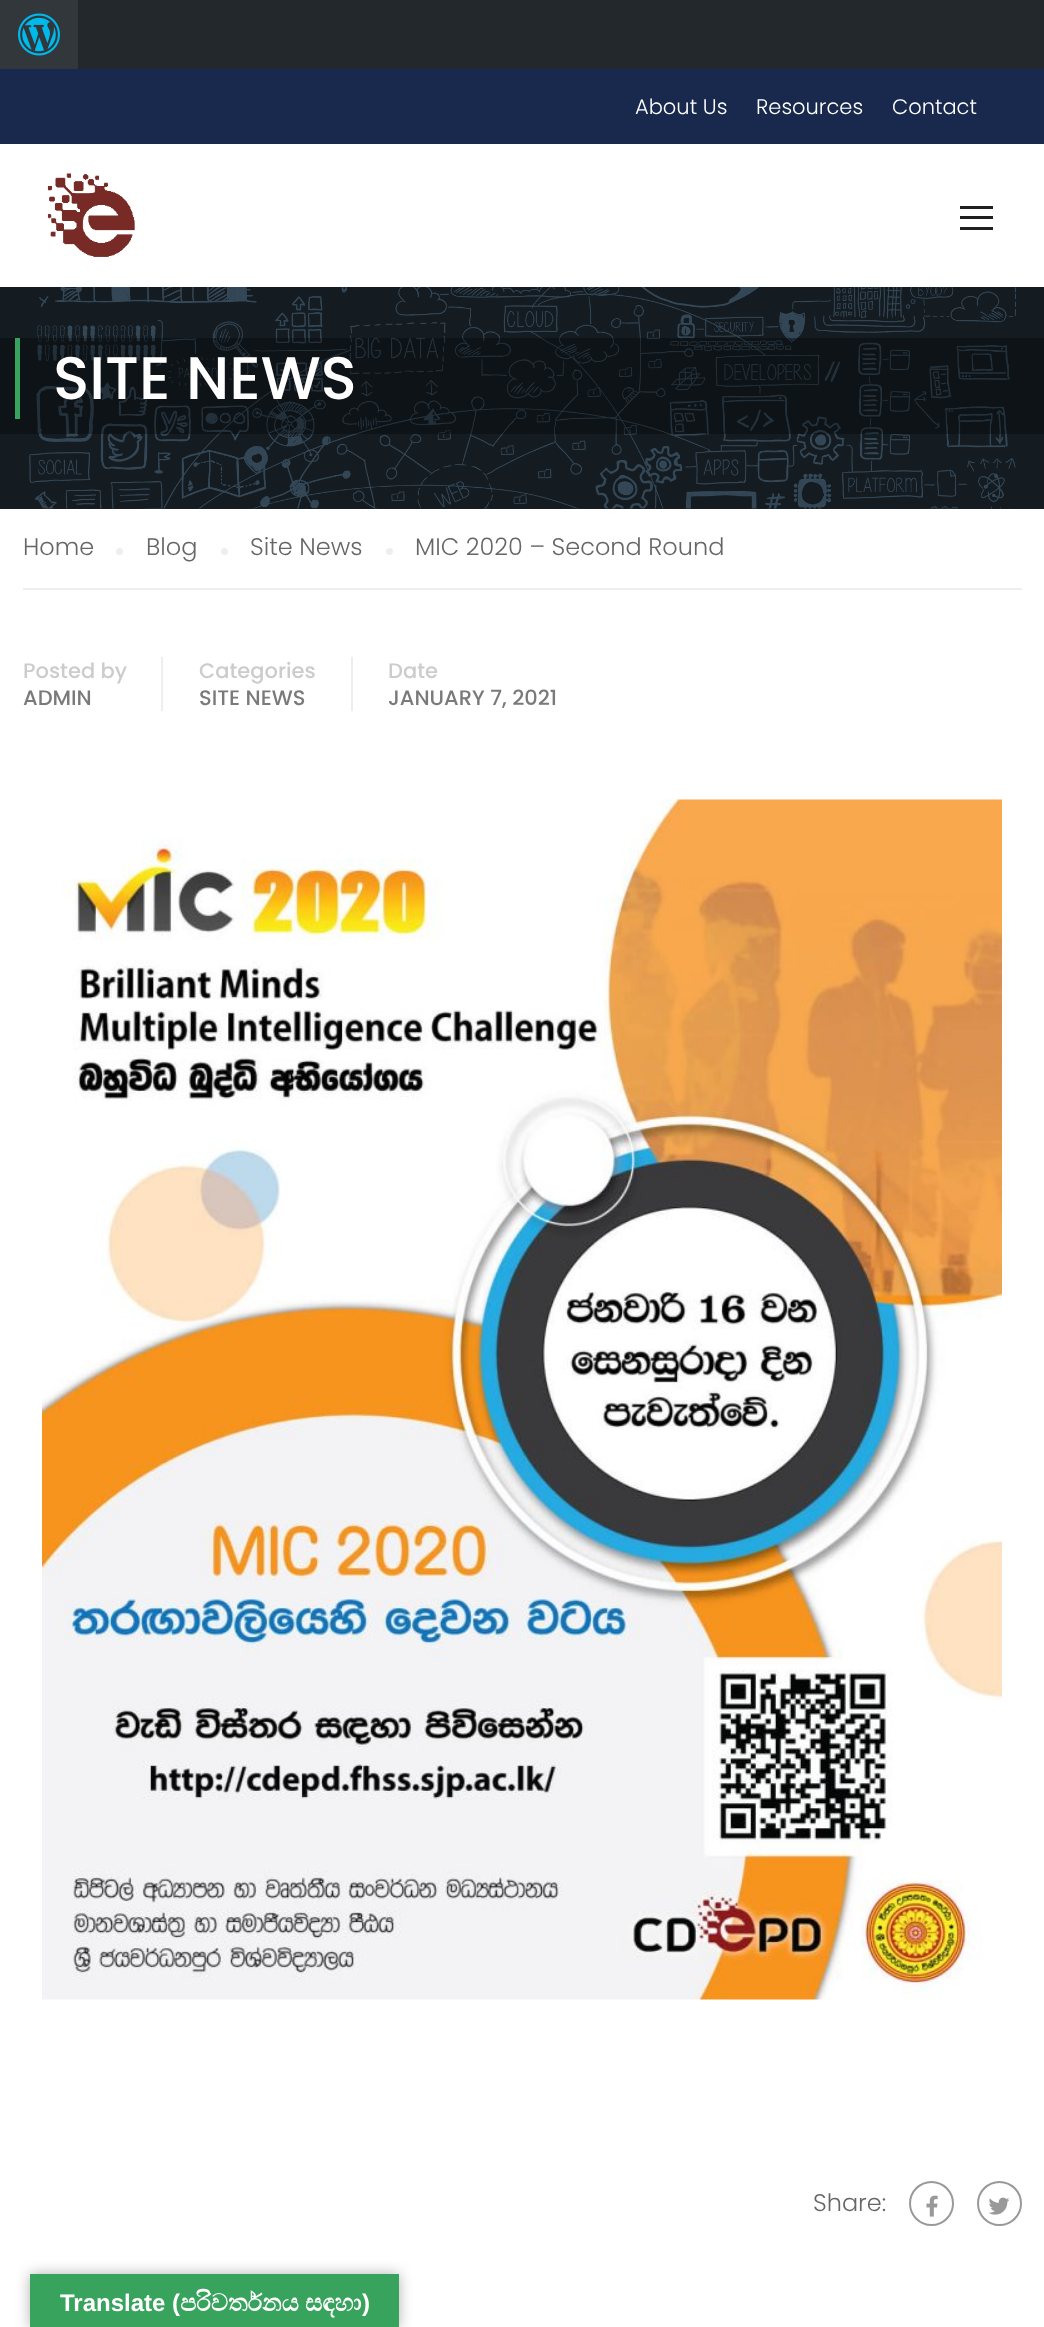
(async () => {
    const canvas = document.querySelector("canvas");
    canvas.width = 1044;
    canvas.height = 2327;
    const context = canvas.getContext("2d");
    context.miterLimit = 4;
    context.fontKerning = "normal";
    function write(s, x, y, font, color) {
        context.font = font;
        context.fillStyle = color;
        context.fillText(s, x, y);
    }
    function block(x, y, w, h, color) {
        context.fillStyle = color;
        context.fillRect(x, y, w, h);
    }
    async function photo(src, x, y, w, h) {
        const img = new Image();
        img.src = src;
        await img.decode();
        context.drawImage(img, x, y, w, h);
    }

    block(0, 0, 1044, 2327, "rgb(255, 255, 255)");
    block(78, 0, 966, 69, "rgb(35, 40, 45)");
    block(0, 0, 78, 69, "rgb(50, 55, 60)");
    await photo("media/1.png", 18, 13, 42, 43);
    block(0, 69, 1044, 75, "rgb(24, 41, 77)");
    write("About Us", 635, 114, "300 21px Poppins", "rgb(255, 255, 255)");
    write("Resources", 756, 114, "300 21px Poppins", "rgb(255, 255, 255)");
    write("Contact", 892, 114, "300 21px Poppins", "rgb(255, 255, 255)");
    await photo("media/2.png", 47, 173, 88, 84);
    block(960, 206, 33, 3, "rgb(32, 32, 32)");
    block(960, 216, 33, 3, "rgb(32, 32, 32)");
    block(960, 227, 33, 3, "rgb(32, 32, 32)");
    block(0, 508, 1044, 1, "rgb(28, 31, 34)");
    await photo("media/3.png", 0, 287, 1044, 222);
    block(0, 338, 1044, 96, "rgba(0, 0, 0, 0.31)");
    block(15, 338, 5, 81, "rgb(55, 163, 93)");
    write("SITE NEWS", 53, 399, "500 60px Poppins", "rgb(255, 255, 255)");
    block(23, 588, 999, 2, "rgb(238, 238, 238)");
    write("Home", 23, 555, "300 24px Poppins", "rgb(102, 102, 102)");
    context.fillStyle = "rgb(238, 238, 238)";
    context.beginPath();
    context.arc(119.5, 551.5, 3.5, 0, Math.PI * 2);
    context.fill();
    write("Blog", 146, 555, "300 24px Poppins", "rgb(102, 102, 102)");
    context.fillStyle = "rgb(238, 238, 238)";
    context.beginPath();
    context.arc(224.5, 551.5, 3.5, 0, Math.PI * 2);
    context.fill();
    write("Site News", 250, 555, "300 24px Poppins", "rgb(102, 102, 102)");
    context.fillStyle = "rgb(238, 238, 238)";
    context.beginPath();
    context.arc(389.5, 551.5, 3.5, 0, Math.PI * 2);
    context.fill();
    write("MIC 2020 – Second Round", 415, 555, "300 24px Poppins", "rgb(102, 102, 102)");
    block(161, 657, 2, 54, "rgb(238, 238, 238)");
    write("Posted by", 23, 678, "500 21px Poppins", "rgb(204, 204, 204)");
    write("ADMIN", 23, 705, "500 21px Poppins", "rgb(122, 122, 122)");
    block(351, 657, 2, 54, "rgb(238, 238, 238)");
    write("Categories", 199, 678, "500 21px Poppins", "rgb(204, 204, 204)");
    write("SITE NEWS", 199, 705, "500 21px Poppins", "rgb(122, 122, 122)");
    write("Date", 388, 678, "500 21px Poppins", "rgb(204, 204, 204)");
    write("JANUARY 7, 2021", 388, 705, "500 21px Poppins", "rgb(122, 122, 122)");
    await photo("media/4.png", 42, 799, 960, 1201);
    write("Share:", 813, 2211, "300 24px Poppins", "rgb(102, 102, 102)");
    context.beginPath();
    context.arc(931.5, 2203.5, 21.5, 0, Math.PI * 2);
    context.strokeStyle = "rgb(153, 153, 153)";
    context.lineWidth = 2;
    context.stroke();
    await photo("media/5.png", 926, 2195, 12, 22);
    context.beginPath();
    context.arc(999.5, 2203.5, 21.5, 0, Math.PI * 2);
    context.stroke();
    await photo("media/6.png", 988, 2197, 22, 18);
    context.fillStyle = "rgba(0, 0, 0, 0.3)";
    context.filter = "blur(7px)";
    context.beginPath();
    context.rect(30, 2274, 369, 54);
    context.fill();
    context.filter = "none";
    block(30, 2274, 369, 53, "rgb(55, 163, 93)");
    write("Translate (", 60, 2311, "bold 24px Liberation Sans", "rgb(255, 255, 255)");
    write("පරිවර්තනය", 180, 2311, "bold 24px FreeSerif", "rgb(255, 255, 255)");
    write("සඳහා", 305, 2311, "bold 24px FreeSerif", "rgb(255, 255, 255)");
    write(")", 362, 2311, "bold 24px Liberation Sans", "rgb(255, 255, 255)");
})();
